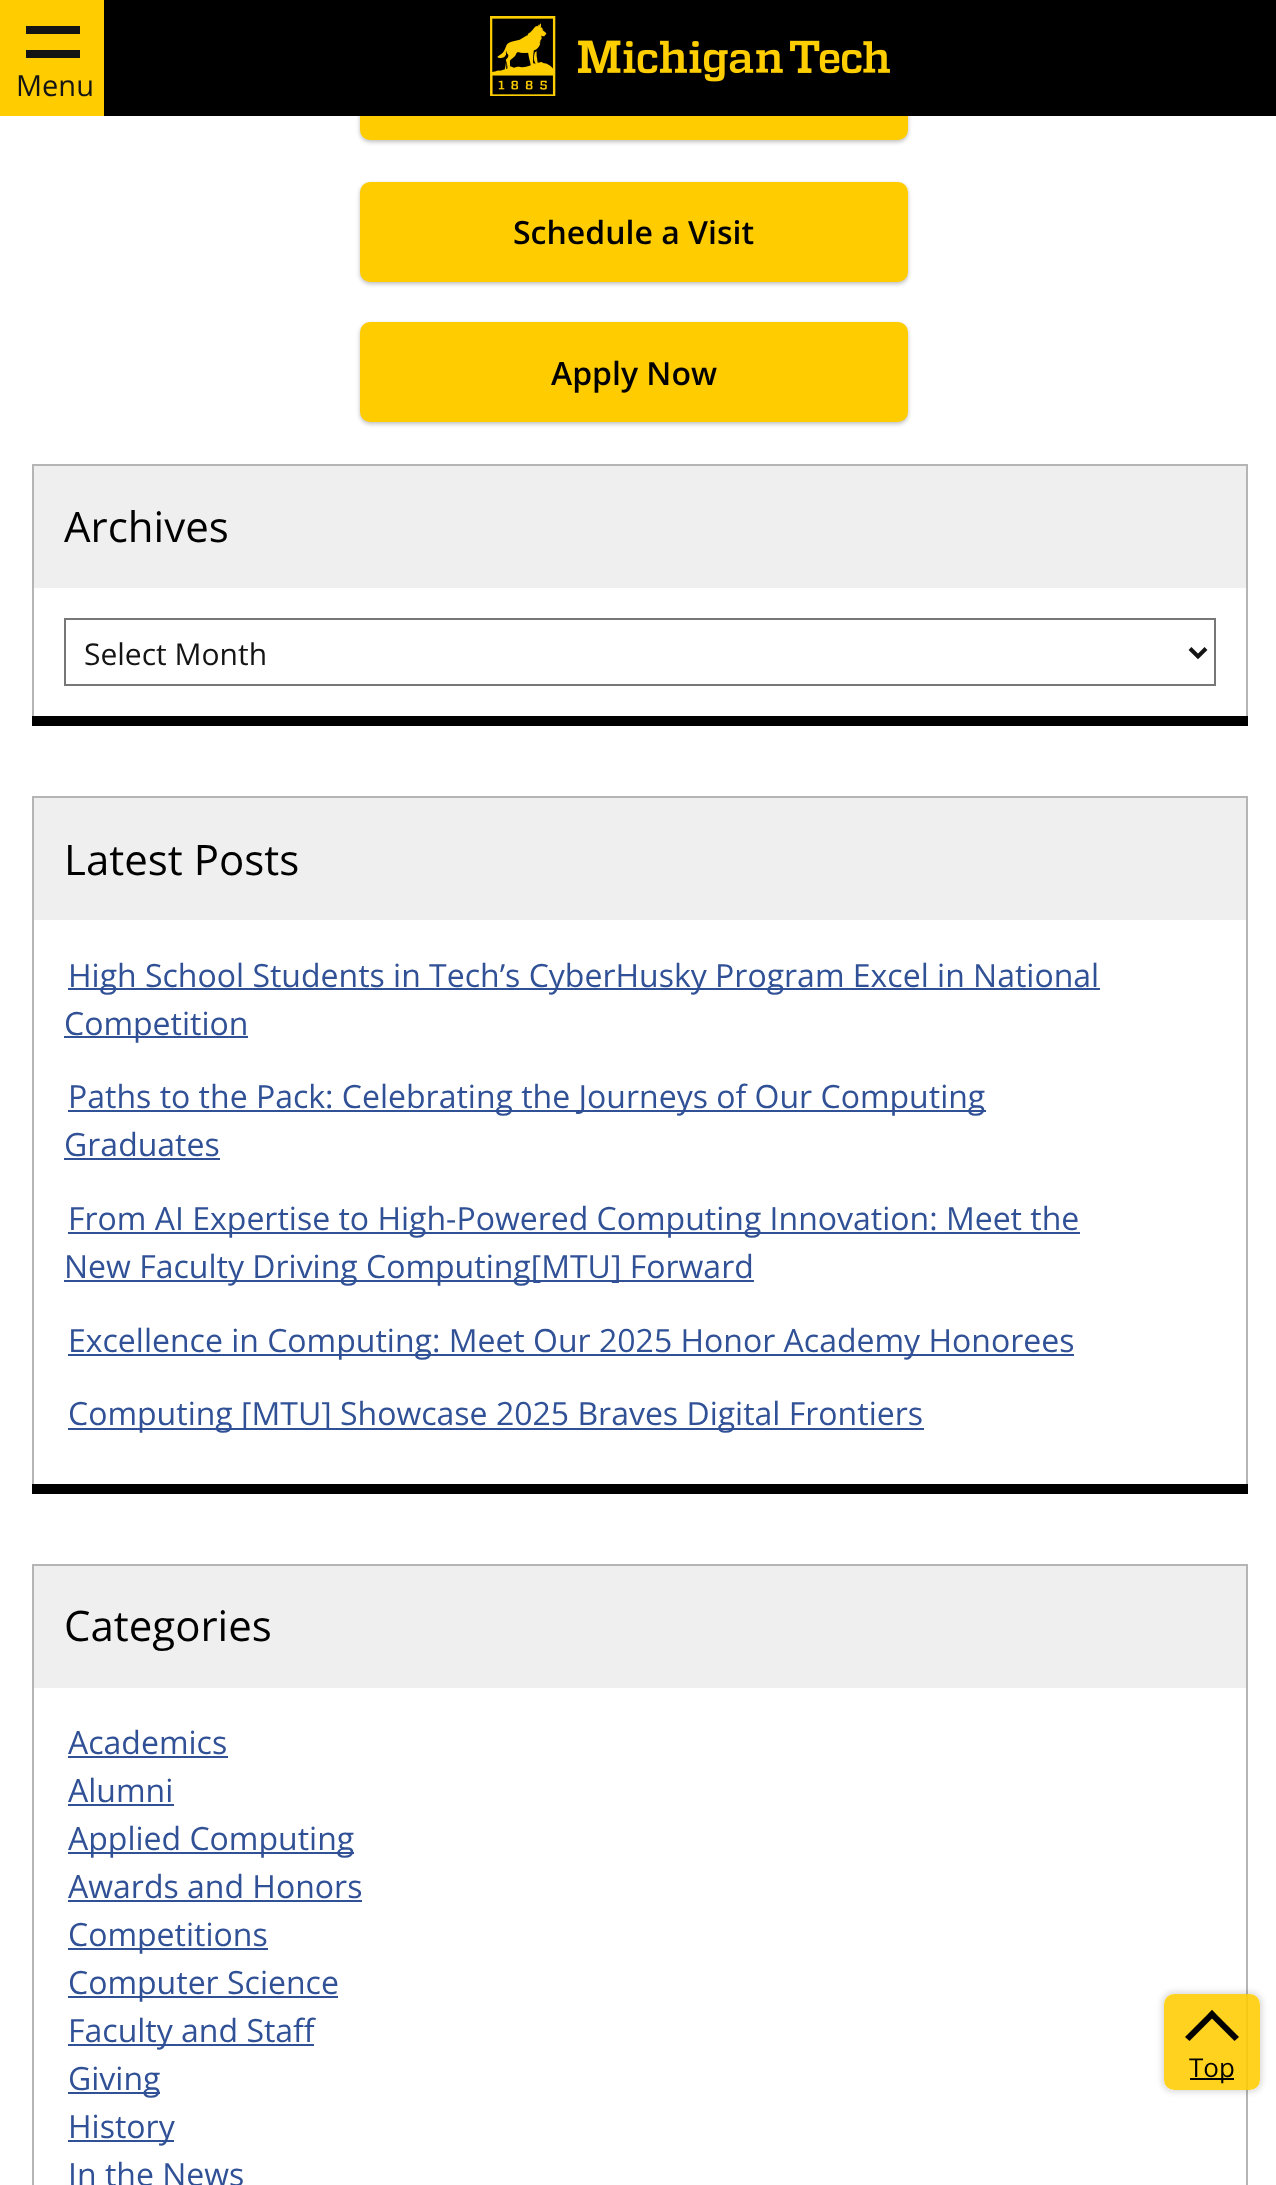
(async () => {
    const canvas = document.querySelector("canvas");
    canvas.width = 1276;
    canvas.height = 2185;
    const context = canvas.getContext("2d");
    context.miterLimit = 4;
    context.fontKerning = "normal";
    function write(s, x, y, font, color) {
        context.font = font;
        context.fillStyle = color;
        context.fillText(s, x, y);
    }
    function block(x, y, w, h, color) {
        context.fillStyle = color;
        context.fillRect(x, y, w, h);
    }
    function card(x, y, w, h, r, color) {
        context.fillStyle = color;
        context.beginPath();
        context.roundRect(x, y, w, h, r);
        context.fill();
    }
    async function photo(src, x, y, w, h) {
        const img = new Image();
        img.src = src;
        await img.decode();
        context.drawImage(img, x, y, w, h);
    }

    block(0, 0, 1276, 2185, "rgb(255, 255, 255)");
    context.fillStyle = "rgba(0, 0, 0, 0.25)";
    context.filter = "blur(2px)";
    context.beginPath();
    context.roundRect(360, 42, 548, 100, 10);
    context.fill();
    context.filter = "none";
    card(360, 40, 548, 100, 10, "rgb(255, 204, 0)");
    block(104, 0, 1172, 116, "rgb(0, 0, 0)");
    block(0, 0, 104, 116, "rgb(255, 204, 0)");
    block(26, 26, 54, 8, "rgb(20, 20, 20)");
    block(26, 50, 54, 8, "rgb(20, 20, 20)");
    write("Menu", 16, 96, "29px Open Sans", "rgb(20, 20, 20)");
    await photo("media/1.png", 490, 16, 400, 80);
    context.fillStyle = "rgba(0, 0, 0, 0.25)";
    context.filter = "blur(2px)";
    context.beginPath();
    context.roundRect(360, 184, 548, 100, 10);
    context.fill();
    context.filter = "none";
    card(360, 182, 548, 100, 10, "rgb(255, 204, 0)");
    write("Schedule a Visit", 513, 244, "600 32px Open Sans", "rgb(0, 0, 0)");
    context.fillStyle = "rgba(0, 0, 0, 0.25)";
    context.filter = "blur(2px)";
    context.beginPath();
    context.roundRect(360, 324, 548, 100, 10);
    context.fill();
    context.filter = "none";
    card(360, 322, 548, 100, 10, "rgb(255, 204, 0)");
    write("Apply Now", 551, 385, "600 32px Open Sans", "rgb(0, 0, 0)");
    block(32, 716, 1216, 10, "rgb(0, 0, 0)");
    block(32, 464, 1216, 2, "rgb(181, 181, 181)");
    block(1246, 464, 2, 252, "rgb(181, 181, 181)");
    block(32, 464, 2, 252, "rgb(181, 181, 181)");
    block(34, 466, 1212, 122, "rgb(239, 239, 239)");
    write("Archives", 64, 542, "42px Open Sans", "rgb(0, 0, 0)");
    context.strokeStyle = "rgb(119, 119, 119)";
    context.lineWidth = 2;
    context.strokeRect(65, 619, 1150, 66);
    context.beginPath();
    context.moveTo(1190, 648.5);
    context.lineTo(1198, 656.5);
    context.lineTo(1206, 648.5);
    context.strokeStyle = "rgb(20, 20, 20)";
    context.lineWidth = 4;
    context.stroke();
    write("Select Month", 84, 665, "30px Open Sans", "rgb(20, 20, 20)");
    block(32, 1484, 1216, 10, "rgb(0, 0, 0)");
    block(32, 796, 1216, 2, "rgb(181, 181, 181)");
    block(1246, 796, 2, 688, "rgb(181, 181, 181)");
    block(32, 796, 2, 688, "rgb(181, 181, 181)");
    block(34, 798, 1212, 122, "rgb(239, 239, 239)");
    write("Latest Posts", 64, 875, "42px Open Sans", "rgb(0, 0, 0)");
    block(68, 988, 1032, 2, "rgb(49, 81, 150)");
    write("High School Students in Tech’s CyberHusky Program Excel in National", 68, 987, "32px Open Sans", "rgb(49, 81, 150)");
    block(64, 1036, 184, 2, "rgb(49, 81, 150)");
    write("Competition", 64, 1035, "32px Open Sans", "rgb(49, 81, 150)");
    block(68, 1110, 918, 2, "rgb(49, 81, 150)");
    write("Paths to the Pack: Celebrating the Journeys of Our Computing", 68, 1108, "32px Open Sans", "rgb(49, 81, 150)");
    write("Graduates", 64, 1156, "32px Open Sans", "rgb(49, 81, 150)");
    block(64, 1158, 156, 2, "rgb(49, 81, 150)");
    block(68, 1232, 1012, 2, "rgb(49, 81, 150)");
    write("From AI Expertise to High-Powered Computing Innovation: Meet the", 68, 1230, "32px Open Sans", "rgb(49, 81, 150)");
    block(64, 1280, 690, 2, "rgb(49, 81, 150)");
    write("New Faculty Driving Computing[MTU] Forward", 64, 1278, "32px Open Sans", "rgb(49, 81, 150)");
    block(68, 1354, 1006, 2, "rgb(49, 81, 150)");
    write("Excellence in Computing: Meet Our 2025 Honor Academy Honorees", 68, 1352, "32px Open Sans", "rgb(49, 81, 150)");
    block(68, 1428, 856, 2, "rgb(49, 81, 150)");
    write("Computing [MTU] Showcase 2025 Braves Digital Frontiers", 68, 1425, "32px Open Sans", "rgb(49, 81, 150)");
    block(32, 1564, 1216, 2, "rgb(181, 181, 181)");
    block(1246, 1564, 2, 621, "rgb(181, 181, 181)");
    block(32, 1564, 2, 621, "rgb(181, 181, 181)");
    block(34, 1566, 1212, 122, "rgb(239, 239, 239)");
    write("Categories", 64, 1641, "42px Open Sans", "rgb(0, 0, 0)");
    write("Academics", 68, 1754, "32px Open Sans", "rgb(49, 81, 150)");
    block(68, 1756, 160, 2, "rgb(49, 81, 150)");
    write("Alumni", 68, 1802, "32px Open Sans", "rgb(49, 81, 150)");
    block(68, 1804, 106, 2, "rgb(49, 81, 150)");
    block(68, 1852, 286, 2, "rgb(49, 81, 150)");
    write("Applied Computing", 68, 1850, "32px Open Sans", "rgb(49, 81, 150)");
    write("Awards and Honors", 68, 1898, "32px Open Sans", "rgb(49, 81, 150)");
    block(68, 1900, 294, 2, "rgb(49, 81, 150)");
    block(68, 1948, 200, 2, "rgb(49, 81, 150)");
    write("Competitions", 68, 1946, "32px Open Sans", "rgb(49, 81, 150)");
    block(68, 1996, 270, 2, "rgb(49, 81, 150)");
    write("Computer Science", 68, 1994, "32px Open Sans", "rgb(49, 81, 150)");
    block(68, 2044, 246, 2, "rgb(49, 81, 150)");
    write("Faculty and Staff", 68, 2042, "32px Open Sans", "rgb(49, 81, 150)");
    block(68, 2092, 92, 2, "rgb(49, 81, 150)");
    write("Giving", 68, 2090, "32px Open Sans", "rgb(49, 81, 150)");
    block(68, 2140, 106, 2, "rgb(49, 81, 150)");
    write("History", 68, 2138, "32px Open Sans", "rgb(49, 81, 150)");
    write("In the News", 68, 2186, "32px Open Sans", "rgb(49, 81, 150)");
    context.save();
    context.beginPath();
    context.moveTo(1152, 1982);
    context.lineTo(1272, 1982);
    context.lineTo(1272, 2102);
    context.lineTo(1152, 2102);
    context.closePath();
    context.moveTo(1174, 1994);
    context.lineTo(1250, 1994);
    context.bezierCurveTo(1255.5, 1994, 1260, 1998.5, 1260, 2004);
    context.lineTo(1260, 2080);
    context.bezierCurveTo(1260, 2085.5, 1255.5, 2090, 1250, 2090);
    context.lineTo(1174, 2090);
    context.bezierCurveTo(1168.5, 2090, 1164, 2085.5, 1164, 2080);
    context.lineTo(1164, 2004);
    context.bezierCurveTo(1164, 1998.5, 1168.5, 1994, 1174, 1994);
    context.closePath();
    context.clip("evenodd");
    context.fillStyle = "rgba(0, 0, 0, 0.15)";
    context.filter = "blur(3px)";
    context.beginPath();
    context.roundRect(1162, 1992, 100, 100, 12);
    context.fill();
    context.filter = "none";
    context.restore();
    card(1164, 1994, 96, 96, 10, "rgba(255, 204, 0, 0.88)");
    context.fillStyle = "rgb(0, 0, 0)";
    context.beginPath();
    context.moveTo(1185, 2037);
    context.lineTo(1212, 2010);
    context.lineTo(1216, 2014.5);
    context.lineTo(1189.5, 2041);
    context.closePath();
    context.fill();
    context.beginPath();
    context.moveTo(1208, 2014.5);
    context.lineTo(1212, 2010);
    context.lineTo(1239, 2037);
    context.lineTo(1234.5, 2041);
    context.closePath();
    context.fill();
    block(1190, 2078, 44, 2, "rgb(0, 0, 0)");
    write("Top", 1189, 2077, "26px Open Sans", "rgb(0, 0, 0)");
})();
